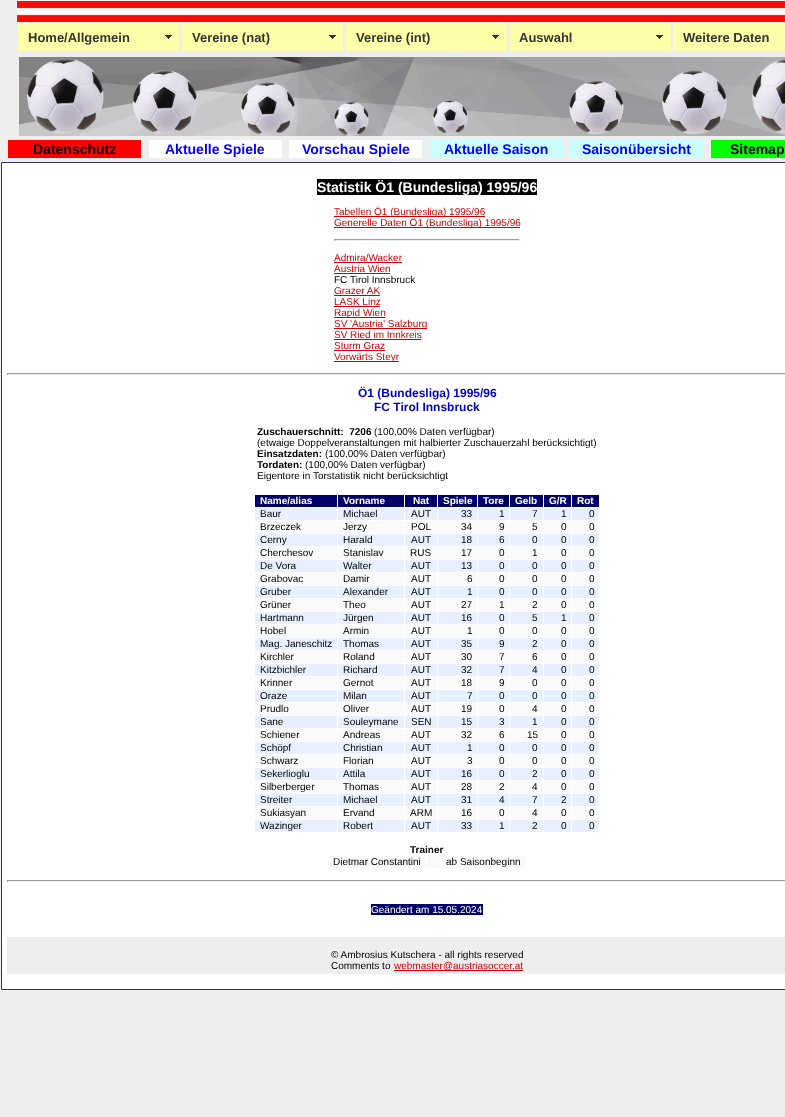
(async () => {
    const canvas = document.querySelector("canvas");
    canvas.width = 785;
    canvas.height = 1117;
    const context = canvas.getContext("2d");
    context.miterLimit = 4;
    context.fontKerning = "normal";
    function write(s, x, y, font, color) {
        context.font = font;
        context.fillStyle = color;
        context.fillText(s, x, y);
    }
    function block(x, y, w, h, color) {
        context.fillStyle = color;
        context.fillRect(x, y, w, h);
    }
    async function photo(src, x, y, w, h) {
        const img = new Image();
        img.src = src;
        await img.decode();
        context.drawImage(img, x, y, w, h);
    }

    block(0, 0, 785, 1117, "rgb(238, 238, 238)");
    await photo("media/1.png", 17, 1, 768, 21);
    block(18, 23, 161, 28, "rgb(255, 255, 170)");
    await photo("media/2.png", 165, 35, 7, 4);
    write("Home/Allgemein", 28, 42, "bold 13px Liberation Sans", "rgb(51, 51, 51)");
    block(182, 23, 161, 28, "rgb(255, 255, 170)");
    await photo("media/2.png", 329, 35, 7, 4);
    write("Vereine (nat)", 192, 42, "bold 13px Liberation Sans", "rgb(51, 51, 51)");
    block(346, 23, 161, 28, "rgb(255, 255, 170)");
    await photo("media/2.png", 492, 35, 7, 4);
    write("Vereine (int)", 356, 42, "bold 13px Liberation Sans", "rgb(51, 51, 51)");
    block(510, 23, 161, 28, "rgb(255, 255, 170)");
    await photo("media/2.png", 656, 35, 7, 4);
    write("Auswahl", 519, 42, "bold 13px Liberation Sans", "rgb(51, 51, 51)");
    block(673, 23, 112, 28, "rgb(255, 255, 170)");
    write("Weitere Daten", 683, 42, "bold 13px Liberation Sans", "rgb(51, 51, 51)");
    await photo("media/3.png", 19, 57, 766, 79);
    block(8, 140, 133, 18, "rgb(255, 0, 0)");
    write("Datenschutz", 33, 154, "bold 14px Liberation Sans", "rgb(0, 0, 0)");
    block(149, 140, 133, 18, "rgb(255, 255, 255)");
    write("Aktuelle Spiele", 165, 154, "bold 14px Liberation Sans", "rgb(0, 0, 255)");
    block(289, 140, 133, 18, "rgb(255, 255, 255)");
    write("Vorschau Spiele", 302, 154, "bold 14px Liberation Sans", "rgb(0, 0, 255)");
    block(430, 140, 133, 18, "rgb(204, 255, 255)");
    write("Aktuelle Saison", 444, 154, "bold 14px Liberation Sans", "rgb(0, 0, 255)");
    block(570, 140, 133, 18, "rgb(204, 255, 255)");
    write("Saisonübersicht", 582, 154, "bold 14px Liberation Sans", "rgb(0, 0, 255)");
    block(711, 140, 74, 18, "rgb(0, 255, 0)");
    write("Sitemap", 730, 154, "bold 14px Liberation Sans", "rgb(0, 0, 0)");
    context.fillStyle = "rgb(255, 255, 255)";
    context.beginPath();
    context.rect(1.5, 162.5, 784, 827);
    context.fill();
    context.strokeStyle = "rgb(51, 51, 102)";
    context.stroke();
    block(317, 179, 220, 16, "rgb(0, 0, 0)");
    write("Statistik Ö1 (Bundesliga) 1995/96", 317, 192, "bold 14px Liberation Sans", "rgb(255, 255, 255)");
    block(334, 216, 151, 1, "rgb(204, 0, 0)");
    write("Tabellen Ö1 (Bundesliga) 1995/96", 334, 215, "10px Liberation Sans", "rgb(204, 0, 0)");
    block(334, 227, 186, 1, "rgb(204, 0, 0)");
    write("Generelle Daten Ö1 (Bundesliga) 1995/96", 334, 226, "10px Liberation Sans", "rgb(204, 0, 0)");
    block(334, 239, 186, 1, "rgb(159, 159, 159)");
    block(519, 239, 1, 2, "rgb(238, 238, 238)");
    block(334, 240, 186, 1, "rgb(238, 238, 238)");
    block(334, 239, 1, 2, "rgb(159, 159, 159)");
    write("Admira/Wacker", 334, 261, "10px Liberation Sans", "rgb(204, 0, 0)");
    block(334, 262, 68, 1, "rgb(204, 0, 0)");
    write("Austria Wien", 334, 272, "10px Liberation Sans", "rgb(204, 0, 0)");
    block(334, 273, 56, 1, "rgb(204, 0, 0)");
    write("FC Tirol Innsbruck", 334, 283, "10px Liberation Sans", "rgb(0, 0, 0)");
    write("Grazer AK", 334, 294, "10px Liberation Sans", "rgb(204, 0, 0)");
    block(334, 295, 46, 1, "rgb(204, 0, 0)");
    write("LASK Linz", 334, 305, "10px Liberation Sans", "rgb(204, 0, 0)");
    block(334, 306, 46, 1, "rgb(204, 0, 0)");
    block(334, 317, 51, 1, "rgb(204, 0, 0)");
    write("Rapid Wien", 334, 316, "10px Liberation Sans", "rgb(204, 0, 0)");
    block(334, 328, 93, 1, "rgb(204, 0, 0)");
    write("SV 'Austria' Salzburg", 334, 327, "10px Liberation Sans", "rgb(204, 0, 0)");
    write("SV Ried im Innkreis", 334, 338, "10px Liberation Sans", "rgb(204, 0, 0)");
    block(334, 339, 87, 1, "rgb(204, 0, 0)");
    write("Sturm Graz", 334, 349, "10px Liberation Sans", "rgb(204, 0, 0)");
    block(334, 350, 51, 1, "rgb(204, 0, 0)");
    block(334, 361, 65, 1, "rgb(204, 0, 0)");
    write("Vorwärts Steyr", 334, 360, "10px Liberation Sans", "rgb(204, 0, 0)");
    block(7, 373, 778, 1, "rgb(159, 159, 159)");
    block(7, 374, 778, 1, "rgb(238, 238, 238)");
    block(7, 373, 1, 2, "rgb(159, 159, 159)");
    write("Ö1 (Bundesliga) 1995/96", 358, 397, "bold 12px Liberation Sans", "rgb(0, 0, 204)");
    write("FC Tirol Innsbruck", 374, 411, "bold 12px Liberation Sans", "rgb(0, 0, 204)");
    write("Zuschauerschnitt:  7206", 257, 435, "bold 10px Liberation Sans", "rgb(0, 0, 0)");
    write("(100,00% Daten verfügbar)", 374, 435, "10px Liberation Sans", "rgb(0, 0, 0)");
    write("(etwaige Doppelveranstaltungen mit halbierter Zuschauerzahl berücksichtigt)", 257, 446, "10px Liberation Sans", "rgb(0, 0, 0)");
    write("Einsatzdaten:", 257, 457, "bold 10px Liberation Sans", "rgb(0, 0, 0)");
    write("(100,00% Daten verfügbar)", 325, 457, "10px Liberation Sans", "rgb(0, 0, 0)");
    write("Tordaten:", 257, 468, "bold 10px Liberation Sans", "rgb(0, 0, 0)");
    write("(100,00% Daten verfügbar)", 305, 468, "10px Liberation Sans", "rgb(0, 0, 0)");
    write("Eigentore in Torstatistik nicht berücksichtigt", 257, 479, "10px Liberation Sans", "rgb(0, 0, 0)");
    block(255, 495, 82, 12, "rgb(0, 0, 102)");
    write("Name/alias", 260, 504, "bold 10px Liberation Sans", "rgb(255, 255, 255)");
    block(338, 495, 66, 12, "rgb(0, 0, 102)");
    write("Vorname", 343, 504, "bold 10px Liberation Sans", "rgb(255, 255, 255)");
    block(405, 495, 32, 12, "rgb(0, 0, 102)");
    write("Nat", 413, 504, "bold 10px Liberation Sans", "rgb(255, 255, 255)");
    block(438, 495, 39, 12, "rgb(0, 0, 102)");
    write("Spiele", 443, 504, "bold 10px Liberation Sans", "rgb(255, 255, 255)");
    block(478, 495, 31, 12, "rgb(0, 0, 102)");
    write("Tore", 483, 504, "bold 10px Liberation Sans", "rgb(255, 255, 255)");
    block(510, 495, 33, 12, "rgb(0, 0, 102)");
    write("Gelb", 515, 504, "bold 10px Liberation Sans", "rgb(255, 255, 255)");
    block(544, 495, 27, 12, "rgb(0, 0, 102)");
    write("G/R", 549, 504, "bold 10px Liberation Sans", "rgb(255, 255, 255)");
    block(572, 495, 27, 12, "rgb(0, 0, 102)");
    write("Rot", 577, 504, "bold 10px Liberation Sans", "rgb(255, 255, 255)");
    block(255, 508, 82, 12, "rgb(232, 240, 255)");
    write("Baur", 260, 517, "10px Liberation Sans", "rgb(0, 0, 0)");
    block(338, 508, 66, 12, "rgb(232, 240, 255)");
    write("Michael", 343, 517, "10px Liberation Sans", "rgb(0, 0, 0)");
    block(405, 508, 32, 12, "rgb(232, 240, 255)");
    write("AUT", 411, 517, "10px Liberation Sans", "rgb(0, 0, 0)");
    block(438, 508, 39, 12, "rgb(232, 240, 255)");
    write("33", 461, 517, "10px Liberation Sans", "rgb(0, 0, 0)");
    block(478, 508, 31, 12, "rgb(232, 240, 255)");
    write("1", 499, 517, "10px Liberation Sans", "rgb(0, 0, 0)");
    block(510, 508, 33, 12, "rgb(232, 240, 255)");
    write("7", 532, 517, "10px Liberation Sans", "rgb(0, 0, 0)");
    block(544, 508, 27, 12, "rgb(232, 240, 255)");
    write("1", 561, 517, "10px Liberation Sans", "rgb(0, 0, 0)");
    block(572, 508, 27, 12, "rgb(232, 240, 255)");
    write("0", 589, 517, "10px Liberation Sans", "rgb(0, 0, 0)");
    block(255, 521, 82, 12, "rgb(249, 249, 249)");
    write("Brzeczek", 260, 530, "10px Liberation Sans", "rgb(0, 0, 0)");
    block(338, 521, 66, 12, "rgb(249, 249, 249)");
    write("Jerzy", 343, 530, "10px Liberation Sans", "rgb(0, 0, 0)");
    block(405, 521, 32, 12, "rgb(249, 249, 249)");
    write("POL", 411, 530, "10px Liberation Sans", "rgb(0, 0, 0)");
    block(438, 521, 39, 12, "rgb(249, 249, 249)");
    write("34", 461, 530, "10px Liberation Sans", "rgb(0, 0, 0)");
    block(478, 521, 31, 12, "rgb(249, 249, 249)");
    write("9", 499, 530, "10px Liberation Sans", "rgb(0, 0, 0)");
    block(510, 521, 33, 12, "rgb(249, 249, 249)");
    write("5", 532, 530, "10px Liberation Sans", "rgb(0, 0, 0)");
    block(544, 521, 27, 12, "rgb(249, 249, 249)");
    write("0", 561, 530, "10px Liberation Sans", "rgb(0, 0, 0)");
    block(572, 521, 27, 12, "rgb(249, 249, 249)");
    write("0", 589, 530, "10px Liberation Sans", "rgb(0, 0, 0)");
    block(255, 534, 82, 12, "rgb(232, 240, 255)");
    write("Cerny", 260, 543, "10px Liberation Sans", "rgb(0, 0, 0)");
    block(338, 534, 66, 12, "rgb(232, 240, 255)");
    write("Harald", 343, 543, "10px Liberation Sans", "rgb(0, 0, 0)");
    block(405, 534, 32, 12, "rgb(232, 240, 255)");
    write("AUT", 411, 543, "10px Liberation Sans", "rgb(0, 0, 0)");
    block(438, 534, 39, 12, "rgb(232, 240, 255)");
    write("18", 461, 543, "10px Liberation Sans", "rgb(0, 0, 0)");
    block(478, 534, 31, 12, "rgb(232, 240, 255)");
    write("6", 499, 543, "10px Liberation Sans", "rgb(0, 0, 0)");
    block(510, 534, 33, 12, "rgb(232, 240, 255)");
    write("0", 532, 543, "10px Liberation Sans", "rgb(0, 0, 0)");
    block(544, 534, 27, 12, "rgb(232, 240, 255)");
    write("0", 561, 543, "10px Liberation Sans", "rgb(0, 0, 0)");
    block(572, 534, 27, 12, "rgb(232, 240, 255)");
    write("0", 589, 543, "10px Liberation Sans", "rgb(0, 0, 0)");
    block(255, 547, 82, 12, "rgb(249, 249, 249)");
    write("Cherchesov", 260, 556, "10px Liberation Sans", "rgb(0, 0, 0)");
    block(338, 547, 66, 12, "rgb(249, 249, 249)");
    write("Stanislav", 343, 556, "10px Liberation Sans", "rgb(0, 0, 0)");
    block(405, 547, 32, 12, "rgb(249, 249, 249)");
    write("RUS", 410, 556, "10px Liberation Sans", "rgb(0, 0, 0)");
    block(438, 547, 39, 12, "rgb(249, 249, 249)");
    write("17", 461, 556, "10px Liberation Sans", "rgb(0, 0, 0)");
    block(478, 547, 31, 12, "rgb(249, 249, 249)");
    write("0", 499, 556, "10px Liberation Sans", "rgb(0, 0, 0)");
    block(510, 547, 33, 12, "rgb(249, 249, 249)");
    write("1", 532, 556, "10px Liberation Sans", "rgb(0, 0, 0)");
    block(544, 547, 27, 12, "rgb(249, 249, 249)");
    write("0", 561, 556, "10px Liberation Sans", "rgb(0, 0, 0)");
    block(572, 547, 27, 12, "rgb(249, 249, 249)");
    write("0", 589, 556, "10px Liberation Sans", "rgb(0, 0, 0)");
    block(255, 560, 82, 12, "rgb(232, 240, 255)");
    write("De Vora", 260, 569, "10px Liberation Sans", "rgb(0, 0, 0)");
    block(338, 560, 66, 12, "rgb(232, 240, 255)");
    write("Walter", 343, 569, "10px Liberation Sans", "rgb(0, 0, 0)");
    block(405, 560, 32, 12, "rgb(232, 240, 255)");
    write("AUT", 411, 569, "10px Liberation Sans", "rgb(0, 0, 0)");
    block(438, 560, 39, 12, "rgb(232, 240, 255)");
    write("13", 461, 569, "10px Liberation Sans", "rgb(0, 0, 0)");
    block(478, 560, 31, 12, "rgb(232, 240, 255)");
    write("0", 499, 569, "10px Liberation Sans", "rgb(0, 0, 0)");
    block(510, 560, 33, 12, "rgb(232, 240, 255)");
    write("0", 532, 569, "10px Liberation Sans", "rgb(0, 0, 0)");
    block(544, 560, 27, 12, "rgb(232, 240, 255)");
    write("0", 561, 569, "10px Liberation Sans", "rgb(0, 0, 0)");
    block(572, 560, 27, 12, "rgb(232, 240, 255)");
    write("0", 589, 569, "10px Liberation Sans", "rgb(0, 0, 0)");
    block(255, 573, 82, 12, "rgb(249, 249, 249)");
    write("Grabovac", 260, 582, "10px Liberation Sans", "rgb(0, 0, 0)");
    block(338, 573, 66, 12, "rgb(249, 249, 249)");
    write("Damir", 343, 582, "10px Liberation Sans", "rgb(0, 0, 0)");
    block(405, 573, 32, 12, "rgb(249, 249, 249)");
    write("AUT", 411, 582, "10px Liberation Sans", "rgb(0, 0, 0)");
    block(438, 573, 39, 12, "rgb(249, 249, 249)");
    write("6", 467, 582, "10px Liberation Sans", "rgb(0, 0, 0)");
    block(478, 573, 31, 12, "rgb(249, 249, 249)");
    write("0", 499, 582, "10px Liberation Sans", "rgb(0, 0, 0)");
    block(510, 573, 33, 12, "rgb(249, 249, 249)");
    write("0", 532, 582, "10px Liberation Sans", "rgb(0, 0, 0)");
    block(544, 573, 27, 12, "rgb(249, 249, 249)");
    write("0", 561, 582, "10px Liberation Sans", "rgb(0, 0, 0)");
    block(572, 573, 27, 12, "rgb(249, 249, 249)");
    write("0", 589, 582, "10px Liberation Sans", "rgb(0, 0, 0)");
    block(255, 586, 82, 12, "rgb(232, 240, 255)");
    write("Gruber", 260, 595, "10px Liberation Sans", "rgb(0, 0, 0)");
    block(338, 586, 66, 12, "rgb(232, 240, 255)");
    write("Alexander", 343, 595, "10px Liberation Sans", "rgb(0, 0, 0)");
    block(405, 586, 32, 12, "rgb(232, 240, 255)");
    write("AUT", 411, 595, "10px Liberation Sans", "rgb(0, 0, 0)");
    block(438, 586, 39, 12, "rgb(232, 240, 255)");
    write("1", 467, 595, "10px Liberation Sans", "rgb(0, 0, 0)");
    block(478, 586, 31, 12, "rgb(232, 240, 255)");
    write("0", 499, 595, "10px Liberation Sans", "rgb(0, 0, 0)");
    block(510, 586, 33, 12, "rgb(232, 240, 255)");
    write("0", 532, 595, "10px Liberation Sans", "rgb(0, 0, 0)");
    block(544, 586, 27, 12, "rgb(232, 240, 255)");
    write("0", 561, 595, "10px Liberation Sans", "rgb(0, 0, 0)");
    block(572, 586, 27, 12, "rgb(232, 240, 255)");
    write("0", 589, 595, "10px Liberation Sans", "rgb(0, 0, 0)");
    block(255, 599, 82, 12, "rgb(249, 249, 249)");
    write("Grüner", 260, 608, "10px Liberation Sans", "rgb(0, 0, 0)");
    block(338, 599, 66, 12, "rgb(249, 249, 249)");
    write("Theo", 343, 608, "10px Liberation Sans", "rgb(0, 0, 0)");
    block(405, 599, 32, 12, "rgb(249, 249, 249)");
    write("AUT", 411, 608, "10px Liberation Sans", "rgb(0, 0, 0)");
    block(438, 599, 39, 12, "rgb(249, 249, 249)");
    write("27", 461, 608, "10px Liberation Sans", "rgb(0, 0, 0)");
    block(478, 599, 31, 12, "rgb(249, 249, 249)");
    write("1", 499, 608, "10px Liberation Sans", "rgb(0, 0, 0)");
    block(510, 599, 33, 12, "rgb(249, 249, 249)");
    write("2", 532, 608, "10px Liberation Sans", "rgb(0, 0, 0)");
    block(544, 599, 27, 12, "rgb(249, 249, 249)");
    write("0", 561, 608, "10px Liberation Sans", "rgb(0, 0, 0)");
    block(572, 599, 27, 12, "rgb(249, 249, 249)");
    write("0", 589, 608, "10px Liberation Sans", "rgb(0, 0, 0)");
    block(255, 612, 82, 12, "rgb(232, 240, 255)");
    write("Hartmann", 260, 621, "10px Liberation Sans", "rgb(0, 0, 0)");
    block(338, 612, 66, 12, "rgb(232, 240, 255)");
    write("Jürgen", 343, 621, "10px Liberation Sans", "rgb(0, 0, 0)");
    block(405, 612, 32, 12, "rgb(232, 240, 255)");
    write("AUT", 411, 621, "10px Liberation Sans", "rgb(0, 0, 0)");
    block(438, 612, 39, 12, "rgb(232, 240, 255)");
    write("16", 461, 621, "10px Liberation Sans", "rgb(0, 0, 0)");
    block(478, 612, 31, 12, "rgb(232, 240, 255)");
    write("0", 499, 621, "10px Liberation Sans", "rgb(0, 0, 0)");
    block(510, 612, 33, 12, "rgb(232, 240, 255)");
    write("5", 532, 621, "10px Liberation Sans", "rgb(0, 0, 0)");
    block(544, 612, 27, 12, "rgb(232, 240, 255)");
    write("1", 561, 621, "10px Liberation Sans", "rgb(0, 0, 0)");
    block(572, 612, 27, 12, "rgb(232, 240, 255)");
    write("0", 589, 621, "10px Liberation Sans", "rgb(0, 0, 0)");
    block(255, 625, 82, 12, "rgb(249, 249, 249)");
    write("Hobel", 260, 634, "10px Liberation Sans", "rgb(0, 0, 0)");
    block(338, 625, 66, 12, "rgb(249, 249, 249)");
    write("Armin", 343, 634, "10px Liberation Sans", "rgb(0, 0, 0)");
    block(405, 625, 32, 12, "rgb(249, 249, 249)");
    write("AUT", 411, 634, "10px Liberation Sans", "rgb(0, 0, 0)");
    block(438, 625, 39, 12, "rgb(249, 249, 249)");
    write("1", 467, 634, "10px Liberation Sans", "rgb(0, 0, 0)");
    block(478, 625, 31, 12, "rgb(249, 249, 249)");
    write("0", 499, 634, "10px Liberation Sans", "rgb(0, 0, 0)");
    block(510, 625, 33, 12, "rgb(249, 249, 249)");
    write("0", 532, 634, "10px Liberation Sans", "rgb(0, 0, 0)");
    block(544, 625, 27, 12, "rgb(249, 249, 249)");
    write("0", 561, 634, "10px Liberation Sans", "rgb(0, 0, 0)");
    block(572, 625, 27, 12, "rgb(249, 249, 249)");
    write("0", 589, 634, "10px Liberation Sans", "rgb(0, 0, 0)");
    block(255, 638, 82, 12, "rgb(232, 240, 255)");
    write("Mag. Janeschitz", 260, 647, "10px Liberation Sans", "rgb(0, 0, 0)");
    block(338, 638, 66, 12, "rgb(232, 240, 255)");
    write("Thomas", 343, 647, "10px Liberation Sans", "rgb(0, 0, 0)");
    block(405, 638, 32, 12, "rgb(232, 240, 255)");
    write("AUT", 411, 647, "10px Liberation Sans", "rgb(0, 0, 0)");
    block(438, 638, 39, 12, "rgb(232, 240, 255)");
    write("35", 461, 647, "10px Liberation Sans", "rgb(0, 0, 0)");
    block(478, 638, 31, 12, "rgb(232, 240, 255)");
    write("9", 499, 647, "10px Liberation Sans", "rgb(0, 0, 0)");
    block(510, 638, 33, 12, "rgb(232, 240, 255)");
    write("2", 532, 647, "10px Liberation Sans", "rgb(0, 0, 0)");
    block(544, 638, 27, 12, "rgb(232, 240, 255)");
    write("0", 561, 647, "10px Liberation Sans", "rgb(0, 0, 0)");
    block(572, 638, 27, 12, "rgb(232, 240, 255)");
    write("0", 589, 647, "10px Liberation Sans", "rgb(0, 0, 0)");
    block(255, 651, 82, 12, "rgb(249, 249, 249)");
    write("Kirchler", 260, 660, "10px Liberation Sans", "rgb(0, 0, 0)");
    block(338, 651, 66, 12, "rgb(249, 249, 249)");
    write("Roland", 343, 660, "10px Liberation Sans", "rgb(0, 0, 0)");
    block(405, 651, 32, 12, "rgb(249, 249, 249)");
    write("AUT", 411, 660, "10px Liberation Sans", "rgb(0, 0, 0)");
    block(438, 651, 39, 12, "rgb(249, 249, 249)");
    write("30", 461, 660, "10px Liberation Sans", "rgb(0, 0, 0)");
    block(478, 651, 31, 12, "rgb(249, 249, 249)");
    write("7", 499, 660, "10px Liberation Sans", "rgb(0, 0, 0)");
    block(510, 651, 33, 12, "rgb(249, 249, 249)");
    write("6", 532, 660, "10px Liberation Sans", "rgb(0, 0, 0)");
    block(544, 651, 27, 12, "rgb(249, 249, 249)");
    write("0", 561, 660, "10px Liberation Sans", "rgb(0, 0, 0)");
    block(572, 651, 27, 12, "rgb(249, 249, 249)");
    write("0", 589, 660, "10px Liberation Sans", "rgb(0, 0, 0)");
    block(255, 664, 82, 12, "rgb(232, 240, 255)");
    write("Kitzbichler", 260, 673, "10px Liberation Sans", "rgb(0, 0, 0)");
    block(338, 664, 66, 12, "rgb(232, 240, 255)");
    write("Richard", 343, 673, "10px Liberation Sans", "rgb(0, 0, 0)");
    block(405, 664, 32, 12, "rgb(232, 240, 255)");
    write("AUT", 411, 673, "10px Liberation Sans", "rgb(0, 0, 0)");
    block(438, 664, 39, 12, "rgb(232, 240, 255)");
    write("32", 461, 673, "10px Liberation Sans", "rgb(0, 0, 0)");
    block(478, 664, 31, 12, "rgb(232, 240, 255)");
    write("7", 499, 673, "10px Liberation Sans", "rgb(0, 0, 0)");
    block(510, 664, 33, 12, "rgb(232, 240, 255)");
    write("4", 532, 673, "10px Liberation Sans", "rgb(0, 0, 0)");
    block(544, 664, 27, 12, "rgb(232, 240, 255)");
    write("0", 561, 673, "10px Liberation Sans", "rgb(0, 0, 0)");
    block(572, 664, 27, 12, "rgb(232, 240, 255)");
    write("0", 589, 673, "10px Liberation Sans", "rgb(0, 0, 0)");
    block(255, 677, 82, 12, "rgb(249, 249, 249)");
    write("Krinner", 260, 686, "10px Liberation Sans", "rgb(0, 0, 0)");
    block(338, 677, 66, 12, "rgb(249, 249, 249)");
    write("Gernot", 343, 686, "10px Liberation Sans", "rgb(0, 0, 0)");
    block(405, 677, 32, 12, "rgb(249, 249, 249)");
    write("AUT", 411, 686, "10px Liberation Sans", "rgb(0, 0, 0)");
    block(438, 677, 39, 12, "rgb(249, 249, 249)");
    write("18", 461, 686, "10px Liberation Sans", "rgb(0, 0, 0)");
    block(478, 677, 31, 12, "rgb(249, 249, 249)");
    write("9", 499, 686, "10px Liberation Sans", "rgb(0, 0, 0)");
    block(510, 677, 33, 12, "rgb(249, 249, 249)");
    write("0", 532, 686, "10px Liberation Sans", "rgb(0, 0, 0)");
    block(544, 677, 27, 12, "rgb(249, 249, 249)");
    write("0", 561, 686, "10px Liberation Sans", "rgb(0, 0, 0)");
    block(572, 677, 27, 12, "rgb(249, 249, 249)");
    write("0", 589, 686, "10px Liberation Sans", "rgb(0, 0, 0)");
    block(255, 690, 82, 12, "rgb(232, 240, 255)");
    write("Oraze", 260, 699, "10px Liberation Sans", "rgb(0, 0, 0)");
    block(338, 690, 66, 12, "rgb(232, 240, 255)");
    write("Milan", 343, 699, "10px Liberation Sans", "rgb(0, 0, 0)");
    block(405, 690, 32, 12, "rgb(232, 240, 255)");
    write("AUT", 411, 699, "10px Liberation Sans", "rgb(0, 0, 0)");
    block(438, 690, 39, 12, "rgb(232, 240, 255)");
    write("7", 467, 699, "10px Liberation Sans", "rgb(0, 0, 0)");
    block(478, 690, 31, 12, "rgb(232, 240, 255)");
    write("0", 499, 699, "10px Liberation Sans", "rgb(0, 0, 0)");
    block(510, 690, 33, 12, "rgb(232, 240, 255)");
    write("0", 532, 699, "10px Liberation Sans", "rgb(0, 0, 0)");
    block(544, 690, 27, 12, "rgb(232, 240, 255)");
    write("0", 561, 699, "10px Liberation Sans", "rgb(0, 0, 0)");
    block(572, 690, 27, 12, "rgb(232, 240, 255)");
    write("0", 589, 699, "10px Liberation Sans", "rgb(0, 0, 0)");
    block(255, 703, 82, 12, "rgb(249, 249, 249)");
    write("Prudlo", 260, 712, "10px Liberation Sans", "rgb(0, 0, 0)");
    block(338, 703, 66, 12, "rgb(249, 249, 249)");
    write("Oliver", 343, 712, "10px Liberation Sans", "rgb(0, 0, 0)");
    block(405, 703, 32, 12, "rgb(249, 249, 249)");
    write("AUT", 411, 712, "10px Liberation Sans", "rgb(0, 0, 0)");
    block(438, 703, 39, 12, "rgb(249, 249, 249)");
    write("19", 461, 712, "10px Liberation Sans", "rgb(0, 0, 0)");
    block(478, 703, 31, 12, "rgb(249, 249, 249)");
    write("0", 499, 712, "10px Liberation Sans", "rgb(0, 0, 0)");
    block(510, 703, 33, 12, "rgb(249, 249, 249)");
    write("4", 532, 712, "10px Liberation Sans", "rgb(0, 0, 0)");
    block(544, 703, 27, 12, "rgb(249, 249, 249)");
    write("0", 561, 712, "10px Liberation Sans", "rgb(0, 0, 0)");
    block(572, 703, 27, 12, "rgb(249, 249, 249)");
    write("0", 589, 712, "10px Liberation Sans", "rgb(0, 0, 0)");
    block(255, 716, 82, 12, "rgb(232, 240, 255)");
    write("Sane", 260, 725, "10px Liberation Sans", "rgb(0, 0, 0)");
    block(338, 716, 66, 12, "rgb(232, 240, 255)");
    write("Souleymane", 343, 725, "10px Liberation Sans", "rgb(0, 0, 0)");
    block(405, 716, 32, 12, "rgb(232, 240, 255)");
    write("SEN", 411, 725, "10px Liberation Sans", "rgb(0, 0, 0)");
    block(438, 716, 39, 12, "rgb(232, 240, 255)");
    write("15", 461, 725, "10px Liberation Sans", "rgb(0, 0, 0)");
    block(478, 716, 31, 12, "rgb(232, 240, 255)");
    write("3", 499, 725, "10px Liberation Sans", "rgb(0, 0, 0)");
    block(510, 716, 33, 12, "rgb(232, 240, 255)");
    write("1", 532, 725, "10px Liberation Sans", "rgb(0, 0, 0)");
    block(544, 716, 27, 12, "rgb(232, 240, 255)");
    write("0", 561, 725, "10px Liberation Sans", "rgb(0, 0, 0)");
    block(572, 716, 27, 12, "rgb(232, 240, 255)");
    write("0", 589, 725, "10px Liberation Sans", "rgb(0, 0, 0)");
    block(255, 729, 82, 12, "rgb(249, 249, 249)");
    write("Schiener", 260, 738, "10px Liberation Sans", "rgb(0, 0, 0)");
    block(338, 729, 66, 12, "rgb(249, 249, 249)");
    write("Andreas", 343, 738, "10px Liberation Sans", "rgb(0, 0, 0)");
    block(405, 729, 32, 12, "rgb(249, 249, 249)");
    write("AUT", 411, 738, "10px Liberation Sans", "rgb(0, 0, 0)");
    block(438, 729, 39, 12, "rgb(249, 249, 249)");
    write("32", 461, 738, "10px Liberation Sans", "rgb(0, 0, 0)");
    block(478, 729, 31, 12, "rgb(249, 249, 249)");
    write("6", 499, 738, "10px Liberation Sans", "rgb(0, 0, 0)");
    block(510, 729, 33, 12, "rgb(249, 249, 249)");
    write("15", 527, 738, "10px Liberation Sans", "rgb(0, 0, 0)");
    block(544, 729, 27, 12, "rgb(249, 249, 249)");
    write("0", 561, 738, "10px Liberation Sans", "rgb(0, 0, 0)");
    block(572, 729, 27, 12, "rgb(249, 249, 249)");
    write("0", 589, 738, "10px Liberation Sans", "rgb(0, 0, 0)");
    block(255, 742, 82, 12, "rgb(232, 240, 255)");
    write("Schöpf", 260, 751, "10px Liberation Sans", "rgb(0, 0, 0)");
    block(338, 742, 66, 12, "rgb(232, 240, 255)");
    write("Christian", 343, 751, "10px Liberation Sans", "rgb(0, 0, 0)");
    block(405, 742, 32, 12, "rgb(232, 240, 255)");
    write("AUT", 411, 751, "10px Liberation Sans", "rgb(0, 0, 0)");
    block(438, 742, 39, 12, "rgb(232, 240, 255)");
    write("1", 467, 751, "10px Liberation Sans", "rgb(0, 0, 0)");
    block(478, 742, 31, 12, "rgb(232, 240, 255)");
    write("0", 499, 751, "10px Liberation Sans", "rgb(0, 0, 0)");
    block(510, 742, 33, 12, "rgb(232, 240, 255)");
    write("0", 532, 751, "10px Liberation Sans", "rgb(0, 0, 0)");
    block(544, 742, 27, 12, "rgb(232, 240, 255)");
    write("0", 561, 751, "10px Liberation Sans", "rgb(0, 0, 0)");
    block(572, 742, 27, 12, "rgb(232, 240, 255)");
    write("0", 589, 751, "10px Liberation Sans", "rgb(0, 0, 0)");
    block(255, 755, 82, 12, "rgb(249, 249, 249)");
    write("Schwarz", 260, 764, "10px Liberation Sans", "rgb(0, 0, 0)");
    block(338, 755, 66, 12, "rgb(249, 249, 249)");
    write("Florian", 343, 764, "10px Liberation Sans", "rgb(0, 0, 0)");
    block(405, 755, 32, 12, "rgb(249, 249, 249)");
    write("AUT", 411, 764, "10px Liberation Sans", "rgb(0, 0, 0)");
    block(438, 755, 39, 12, "rgb(249, 249, 249)");
    write("3", 467, 764, "10px Liberation Sans", "rgb(0, 0, 0)");
    block(478, 755, 31, 12, "rgb(249, 249, 249)");
    write("0", 499, 764, "10px Liberation Sans", "rgb(0, 0, 0)");
    block(510, 755, 33, 12, "rgb(249, 249, 249)");
    write("0", 532, 764, "10px Liberation Sans", "rgb(0, 0, 0)");
    block(544, 755, 27, 12, "rgb(249, 249, 249)");
    write("0", 561, 764, "10px Liberation Sans", "rgb(0, 0, 0)");
    block(572, 755, 27, 12, "rgb(249, 249, 249)");
    write("0", 589, 764, "10px Liberation Sans", "rgb(0, 0, 0)");
    block(255, 768, 82, 12, "rgb(232, 240, 255)");
    write("Sekerlioglu", 260, 777, "10px Liberation Sans", "rgb(0, 0, 0)");
    block(338, 768, 66, 12, "rgb(232, 240, 255)");
    write("Attila", 343, 777, "10px Liberation Sans", "rgb(0, 0, 0)");
    block(405, 768, 32, 12, "rgb(232, 240, 255)");
    write("AUT", 411, 777, "10px Liberation Sans", "rgb(0, 0, 0)");
    block(438, 768, 39, 12, "rgb(232, 240, 255)");
    write("16", 461, 777, "10px Liberation Sans", "rgb(0, 0, 0)");
    block(478, 768, 31, 12, "rgb(232, 240, 255)");
    write("0", 499, 777, "10px Liberation Sans", "rgb(0, 0, 0)");
    block(510, 768, 33, 12, "rgb(232, 240, 255)");
    write("2", 532, 777, "10px Liberation Sans", "rgb(0, 0, 0)");
    block(544, 768, 27, 12, "rgb(232, 240, 255)");
    write("0", 561, 777, "10px Liberation Sans", "rgb(0, 0, 0)");
    block(572, 768, 27, 12, "rgb(232, 240, 255)");
    write("0", 589, 777, "10px Liberation Sans", "rgb(0, 0, 0)");
    block(255, 781, 82, 12, "rgb(249, 249, 249)");
    write("Silberberger", 260, 790, "10px Liberation Sans", "rgb(0, 0, 0)");
    block(338, 781, 66, 12, "rgb(249, 249, 249)");
    write("Thomas", 343, 790, "10px Liberation Sans", "rgb(0, 0, 0)");
    block(405, 781, 32, 12, "rgb(249, 249, 249)");
    write("AUT", 411, 790, "10px Liberation Sans", "rgb(0, 0, 0)");
    block(438, 781, 39, 12, "rgb(249, 249, 249)");
    write("28", 461, 790, "10px Liberation Sans", "rgb(0, 0, 0)");
    block(478, 781, 31, 12, "rgb(249, 249, 249)");
    write("2", 499, 790, "10px Liberation Sans", "rgb(0, 0, 0)");
    block(510, 781, 33, 12, "rgb(249, 249, 249)");
    write("4", 532, 790, "10px Liberation Sans", "rgb(0, 0, 0)");
    block(544, 781, 27, 12, "rgb(249, 249, 249)");
    write("0", 561, 790, "10px Liberation Sans", "rgb(0, 0, 0)");
    block(572, 781, 27, 12, "rgb(249, 249, 249)");
    write("0", 589, 790, "10px Liberation Sans", "rgb(0, 0, 0)");
    block(255, 794, 82, 12, "rgb(232, 240, 255)");
    write("Streiter", 260, 803, "10px Liberation Sans", "rgb(0, 0, 0)");
    block(338, 794, 66, 12, "rgb(232, 240, 255)");
    write("Michael", 343, 803, "10px Liberation Sans", "rgb(0, 0, 0)");
    block(405, 794, 32, 12, "rgb(232, 240, 255)");
    write("AUT", 411, 803, "10px Liberation Sans", "rgb(0, 0, 0)");
    block(438, 794, 39, 12, "rgb(232, 240, 255)");
    write("31", 461, 803, "10px Liberation Sans", "rgb(0, 0, 0)");
    block(478, 794, 31, 12, "rgb(232, 240, 255)");
    write("4", 499, 803, "10px Liberation Sans", "rgb(0, 0, 0)");
    block(510, 794, 33, 12, "rgb(232, 240, 255)");
    write("7", 532, 803, "10px Liberation Sans", "rgb(0, 0, 0)");
    block(544, 794, 27, 12, "rgb(232, 240, 255)");
    write("2", 561, 803, "10px Liberation Sans", "rgb(0, 0, 0)");
    block(572, 794, 27, 12, "rgb(232, 240, 255)");
    write("0", 589, 803, "10px Liberation Sans", "rgb(0, 0, 0)");
    block(255, 807, 82, 12, "rgb(249, 249, 249)");
    write("Sukiasyan", 260, 816, "10px Liberation Sans", "rgb(0, 0, 0)");
    block(338, 807, 66, 12, "rgb(249, 249, 249)");
    write("Ervand", 343, 816, "10px Liberation Sans", "rgb(0, 0, 0)");
    block(405, 807, 32, 12, "rgb(249, 249, 249)");
    write("ARM", 410, 816, "10px Liberation Sans", "rgb(0, 0, 0)");
    block(438, 807, 39, 12, "rgb(249, 249, 249)");
    write("16", 461, 816, "10px Liberation Sans", "rgb(0, 0, 0)");
    block(478, 807, 31, 12, "rgb(249, 249, 249)");
    write("0", 499, 816, "10px Liberation Sans", "rgb(0, 0, 0)");
    block(510, 807, 33, 12, "rgb(249, 249, 249)");
    write("4", 532, 816, "10px Liberation Sans", "rgb(0, 0, 0)");
    block(544, 807, 27, 12, "rgb(249, 249, 249)");
    write("0", 561, 816, "10px Liberation Sans", "rgb(0, 0, 0)");
    block(572, 807, 27, 12, "rgb(249, 249, 249)");
    write("0", 589, 816, "10px Liberation Sans", "rgb(0, 0, 0)");
    block(255, 820, 82, 12, "rgb(232, 240, 255)");
    write("Wazinger", 260, 829, "10px Liberation Sans", "rgb(0, 0, 0)");
    block(338, 820, 66, 12, "rgb(232, 240, 255)");
    write("Robert", 343, 829, "10px Liberation Sans", "rgb(0, 0, 0)");
    block(405, 820, 32, 12, "rgb(232, 240, 255)");
    write("AUT", 411, 829, "10px Liberation Sans", "rgb(0, 0, 0)");
    block(438, 820, 39, 12, "rgb(232, 240, 255)");
    write("33", 461, 829, "10px Liberation Sans", "rgb(0, 0, 0)");
    block(478, 820, 31, 12, "rgb(232, 240, 255)");
    write("1", 499, 829, "10px Liberation Sans", "rgb(0, 0, 0)");
    block(510, 820, 33, 12, "rgb(232, 240, 255)");
    write("2", 532, 829, "10px Liberation Sans", "rgb(0, 0, 0)");
    block(544, 820, 27, 12, "rgb(232, 240, 255)");
    write("0", 561, 829, "10px Liberation Sans", "rgb(0, 0, 0)");
    block(572, 820, 27, 12, "rgb(232, 240, 255)");
    write("0", 589, 829, "10px Liberation Sans", "rgb(0, 0, 0)");
    write("Trainer", 410, 853, "bold 10px Liberation Sans", "rgb(0, 0, 0)");
    block(328, 856, 98, 12, "rgb(249, 249, 249)");
    write("Dietmar Constantini", 333, 865, "10px Liberation Sans", "rgb(0, 0, 0)");
    block(427, 856, 13, 12, "rgb(249, 249, 249)");
    block(441, 856, 85, 12, "rgb(249, 249, 249)");
    write("ab Saisonbeginn", 446, 865, "10px Liberation Sans", "rgb(0, 0, 0)");
    block(7, 880, 778, 1, "rgb(159, 159, 159)");
    block(7, 881, 778, 1, "rgb(238, 238, 238)");
    block(7, 880, 1, 2, "rgb(159, 159, 159)");
    block(371, 904, 112, 11, "rgb(0, 0, 102)");
    write("Geändert am 15.05.2024", 371, 913, "10px Liberation Sans", "rgb(255, 255, 255)");
    block(7, 937, 778, 37, "rgb(238, 238, 238)");
    write("© Ambrosius Kutschera - all rights reserved", 331, 958, "10px Liberation Sans", "rgb(0, 0, 0)");
    write("Comments to", 331, 969, "10px Liberation Sans", "rgb(0, 0, 0)");
    block(394, 970, 129, 1, "rgb(204, 0, 0)");
    write("webmaster@austriasoccer.at", 394, 969, "10px Liberation Sans", "rgb(204, 0, 0)");
})();
